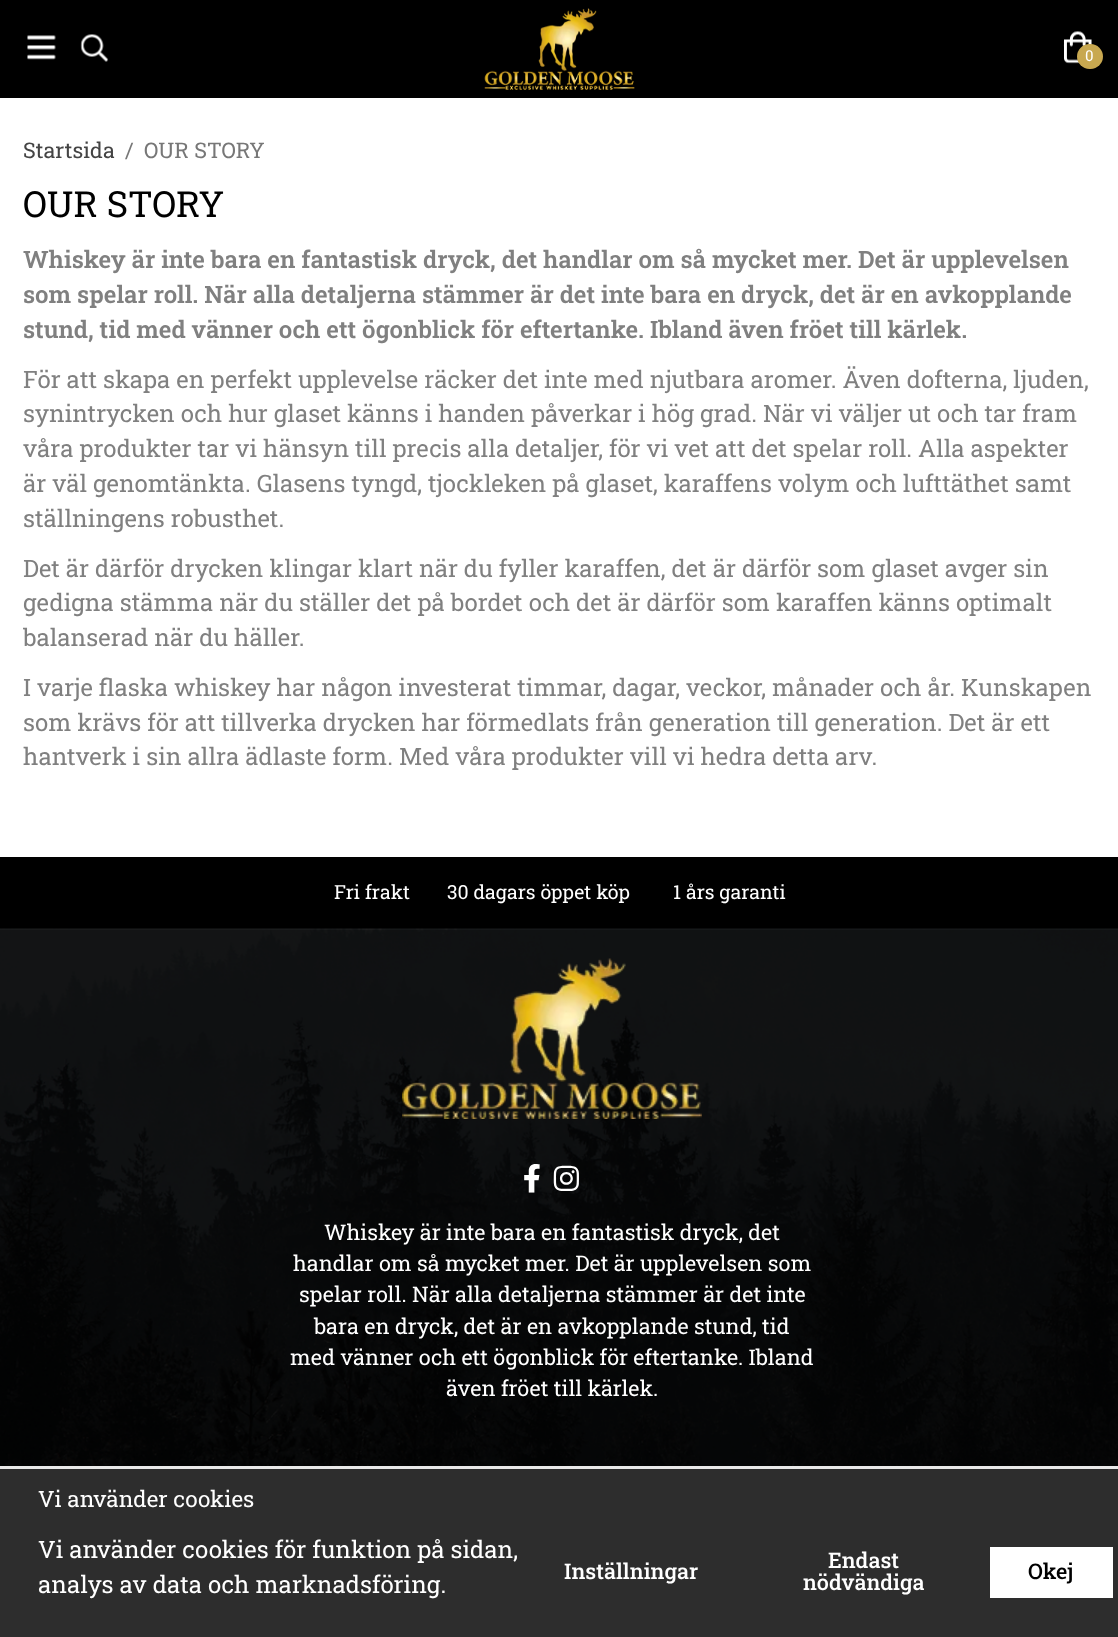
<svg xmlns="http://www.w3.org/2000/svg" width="1118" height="1637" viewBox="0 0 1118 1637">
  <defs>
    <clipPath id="clip1"><rect x="23" y="182" width="1074" height="607"/></clipPath>
  </defs>
  <rect width="100%" height="100%" fill="#ffffff"/>
  <rect x="0" y="0" width="1118" height="98" fill="#000000"/>
  <image x="27" y="35" width="29" height="25" href="img1.png"/>
  <image x="80" y="34" width="29" height="28" href="img2.png"/>
  <image x="484" y="8" width="151" height="82" href="img3.png"/>
  <image x="1063" y="31" width="29" height="33" href="img4.png"/>
  <rect x="1077" y="44" width="26" height="25" rx="12.5" fill="#c8a850"/>
  <text x="1085" y="61" font-family="Roboto Slab" font-size="15" fill="#ffffff">0</text>
  <text x="23" y="158" font-family="Roboto Slab" font-size="21.6" fill="#444444">Startsida</text>
  <text x="125" y="158" font-family="Roboto Slab" font-size="21.6" fill="#777777">/</text>
  <text x="144" y="158" font-family="Roboto Slab" font-size="21.6" fill="#777777">OUR STORY</text>
  <text x="23" y="217" font-family="Roboto Slab" font-size="36" fill="#000000">OUR STORY</text>
  <text x="23" y="268" font-family="Roboto Slab" font-size="24" font-weight="600" fill="#808080">Whiskey är inte bara en fantastisk dryck, det handlar om så mycket mer. Det är upplevelsen</text>
  <text x="23" y="303" font-family="Roboto Slab" font-size="24" font-weight="600" fill="#808080">som spelar roll. När alla detaljerna stämmer är det inte bara en dryck, det är en avkopplande</text>
  <text x="23" y="338" font-family="Roboto Slab" font-size="24" font-weight="600" fill="#808080">stund, tid med vänner och ett ögonblick för eftertanke. Ibland även fröet till kärlek.</text>
  <text x="23" y="388" font-family="Roboto Slab" font-size="24" fill="#808080">För att skapa en perfekt upplevelse räcker det inte med njutbara aromer. Även dofterna, ljuden,</text>
  <text x="23" y="422" font-family="Roboto Slab" font-size="24" fill="#808080">synintrycken och hur glaset känns i handen påverkar i hög grad. När vi väljer ut och tar fram</text>
  <text x="23" y="457" font-family="Roboto Slab" font-size="24" fill="#808080">våra produkter tar vi hänsyn till precis alla detaljer, för vi vet att det spelar roll. Alla aspekter</text>
  <text x="23" y="492" font-family="Roboto Slab" font-size="24" fill="#808080">är väl genomtänkta. Glasens tyngd, tjockleken på glaset, karaffens volym och lufttäthet samt</text>
  <text x="23" y="527" font-family="Roboto Slab" font-size="24" fill="#808080">ställningens robusthet.</text>
  <text x="23" y="577" font-family="Roboto Slab" font-size="24" fill="#808080">Det är därför drycken klingar klart när du fyller karaffen, det är därför som glaset avger sin</text>
  <text x="23" y="611" font-family="Roboto Slab" font-size="24" fill="#808080">gedigna stämma när du ställer det på bordet och det är därför som karaffen känns optimalt</text>
  <g clip-path="url(#clip1)">
    <text x="23" y="646" font-family="Roboto Slab" font-size="24" fill="#808080">balanserad när du häller.</text>
  </g>
  <text x="23" y="696" font-family="Roboto Slab" font-size="24" fill="#808080">I varje flaska whiskey har någon investerat timmar, dagar, veckor, månader och år. Kunskapen</text>
  <text x="23" y="731" font-family="Roboto Slab" font-size="24" fill="#808080">som krävs för att tillverka drycken har förmedlats från generation till generation. Det är ett</text>
  <text x="23" y="765" font-family="Roboto Slab" font-size="24" fill="#808080">hantverk i sin allra ädlaste form. Med våra produkter vill vi hedra detta arv.</text>
  <rect x="0" y="857" width="1118" height="72" fill="#000000"/>
  <text x="334" y="899" font-family="Roboto Slab" font-size="19.5" fill="#ffffff">Fri frakt</text>
  <text x="447" y="899" font-family="Roboto Slab" font-size="19.5" fill="#ffffff">30 dagars öppet köp</text>
  <text x="673" y="899" font-family="Roboto Slab" font-size="19.5" fill="#ffffff">1 års garanti</text>
  <image x="0" y="928" width="1118" height="538" href="img5.png"/>
  <image x="402" y="958" width="300" height="161" href="img6.png"/>
  <image x="524" y="1164" width="16" height="29" href="img7.png"/>
  <image x="553" y="1165" width="26" height="26" href="img8.png"/>
  <text x="324" y="1240" font-family="Roboto Slab" font-size="21.6" fill="#ffffff">Whiskey är inte bara en fantastisk dryck, det</text>
  <text x="293" y="1271" font-family="Roboto Slab" font-size="21.6" fill="#ffffff">handlar om så mycket mer. Det är upplevelsen som</text>
  <text x="299" y="1302" font-family="Roboto Slab" font-size="21.6" fill="#ffffff">spelar roll. När alla detaljerna stämmer är det inte</text>
  <text x="314" y="1334" font-family="Roboto Slab" font-size="21.6" fill="#ffffff">bara en dryck, det är en avkopplande stund, tid</text>
  <text x="290" y="1365" font-family="Roboto Slab" font-size="21.6" fill="#ffffff">med vänner och ett ögonblick för eftertanke. Ibland</text>
  <text x="446" y="1396" font-family="Roboto Slab" font-size="21.6" fill="#ffffff">även fröet till kärlek.</text>
  <rect x="0" y="1469" width="1118" height="168" fill="#2d2d2d"/>
  <rect x="0" y="1466" width="1118" height="3" fill="#e9e9e9"/>
  <text x="38" y="1507" font-family="Roboto Slab" font-size="22.5" fill="#ffffff">Vi använder cookies</text>
  <text x="38" y="1558" font-family="Roboto Slab" font-size="24" fill="#ffffff">Vi använder cookies för funktion på sidan,</text>
  <text x="38" y="1593" font-family="Roboto Slab" font-size="24" fill="#ffffff">analys av data och marknadsföring.</text>
  <text x="564" y="1579" font-family="Roboto Slab" font-size="21.6" font-weight="500" fill="#ffffff">Inställningar</text>
  <text x="828" y="1568" font-family="Roboto Slab" font-size="21.6" font-weight="500" fill="#ffffff">Endast</text>
  <text x="803" y="1590" font-family="Roboto Slab" font-size="21.6" font-weight="500" fill="#ffffff">nödvändiga</text>
  <rect x="990" y="1547" width="123" height="51" fill="#ffffff"/>
  <text x="1028" y="1579" font-family="Roboto Slab" font-size="21.6" font-weight="500" fill="#000000">Okej</text>
</svg>
